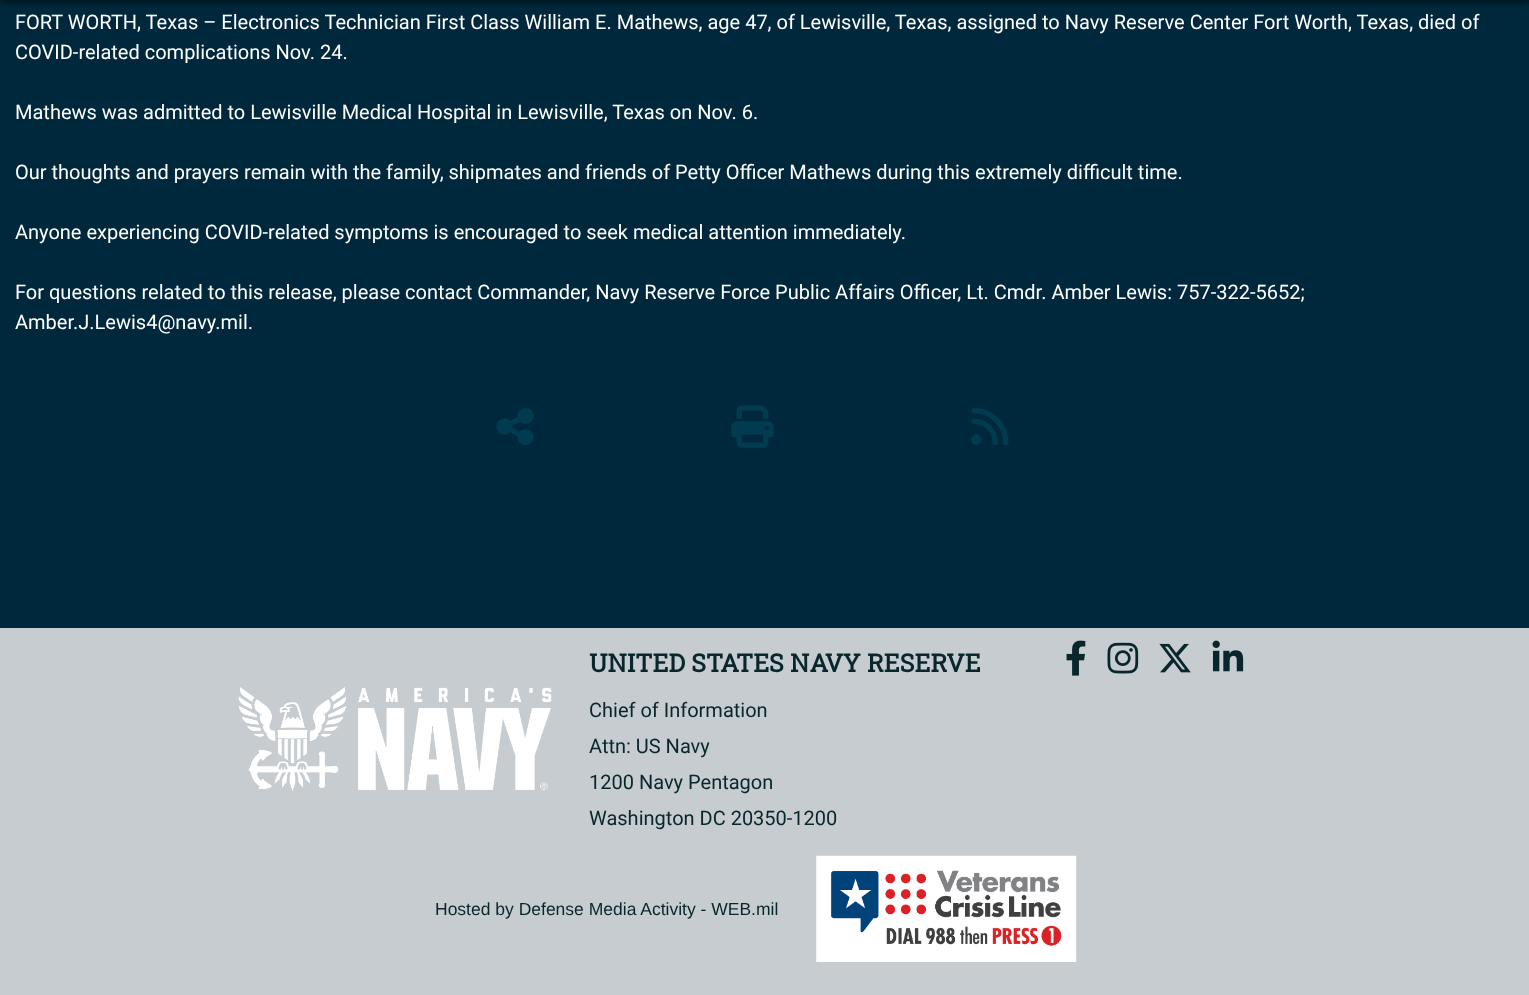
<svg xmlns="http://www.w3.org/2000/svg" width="1529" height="995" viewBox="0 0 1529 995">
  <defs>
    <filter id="blur1" x="-50%" y="-200%" width="200%" height="500%"><feGaussianBlur stdDeviation="3"/></filter>
  </defs>
  <rect width="100%" height="100%" fill="#00283c"/>
  <rect x="0" y="-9" width="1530" height="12" fill="#000406" fill-opacity="0.5" filter="url(#blur1)"/>
  <text x="15" y="29" font-family="Roboto" font-size="20" fill="#ffffff">FORT WORTH, Texas – Electronics Technician First Class William E. Mathews, age 47, of Lewisville, Texas, assigned to Navy Reserve Center Fort Worth, Texas, died of</text>
  <text x="15" y="59" font-family="Roboto" font-size="20" fill="#ffffff">COVID-related complications Nov. 24.</text>
  <text x="15" y="119" font-family="Roboto" font-size="20" fill="#ffffff">Mathews was admitted to Lewisville Medical Hospital in Lewisville, Texas on Nov. 6.</text>
  <text x="15" y="179" font-family="Roboto" font-size="20" fill="#ffffff">Our thoughts and prayers remain with the family, shipmates and friends of Petty Officer Mathews during this extremely difficult time.</text>
  <text x="15" y="239" font-family="Roboto" font-size="20" fill="#ffffff">Anyone experiencing COVID-related symptoms is encouraged to seek medical attention immediately.</text>
  <text x="15" y="299" font-family="Roboto" font-size="20" fill="#ffffff">For questions related to this release, please contact Commander, Navy Reserve Force Public Affairs Officer, Lt. Cmdr. Amber Lewis: 757-322-5652;</text>
  <text x="15" y="329" font-family="Roboto" font-size="20" fill="#ffffff">Amber.J.Lewis4@navy.mil.</text>
  <image x="496" y="408" width="38" height="37" href="img1.png"/>
  <image x="731" y="405" width="43" height="43" href="img2.png"/>
  <image x="971" y="408" width="38" height="37" href="img3.png"/>
  <rect x="0" y="628" width="1529" height="367" fill="#c6ccd0"/>
  <image x="238" y="687" width="314" height="104" href="img4.png"/>
  <text x="589" y="672" font-family="Roboto Slab" font-size="25" font-weight="bold" fill="#08262c">UNITED STATES NAVY RESERVE</text>
  <text x="589" y="717" font-family="Roboto" font-size="20" fill="#08262c">Chief of Information</text>
  <text x="589" y="753" font-family="Roboto" font-size="20" fill="#08262c">Attn: US Navy</text>
  <text x="589" y="789" font-family="Roboto" font-size="20" fill="#08262c">1200 Navy Pentagon</text>
  <text x="589" y="825" font-family="Roboto" font-size="20" fill="#08262c">Washington DC 20350-1200</text>
  <image x="1066" y="640" width="20" height="36" href="img5.png"/>
  <image x="1107" y="642" width="32" height="32" href="img6.png"/>
  <image x="1159" y="643" width="32" height="30" href="img7.png"/>
  <image x="1212" y="640" width="32" height="32" href="img8.png"/>
  <text x="435" y="915" font-family="Liberation Sans" font-size="17.5" fill="#08262c">Hosted by Defense Media Activity - WEB.mil</text>
  <image x="816" y="855" width="261" height="107" href="img9.png"/>
</svg>
